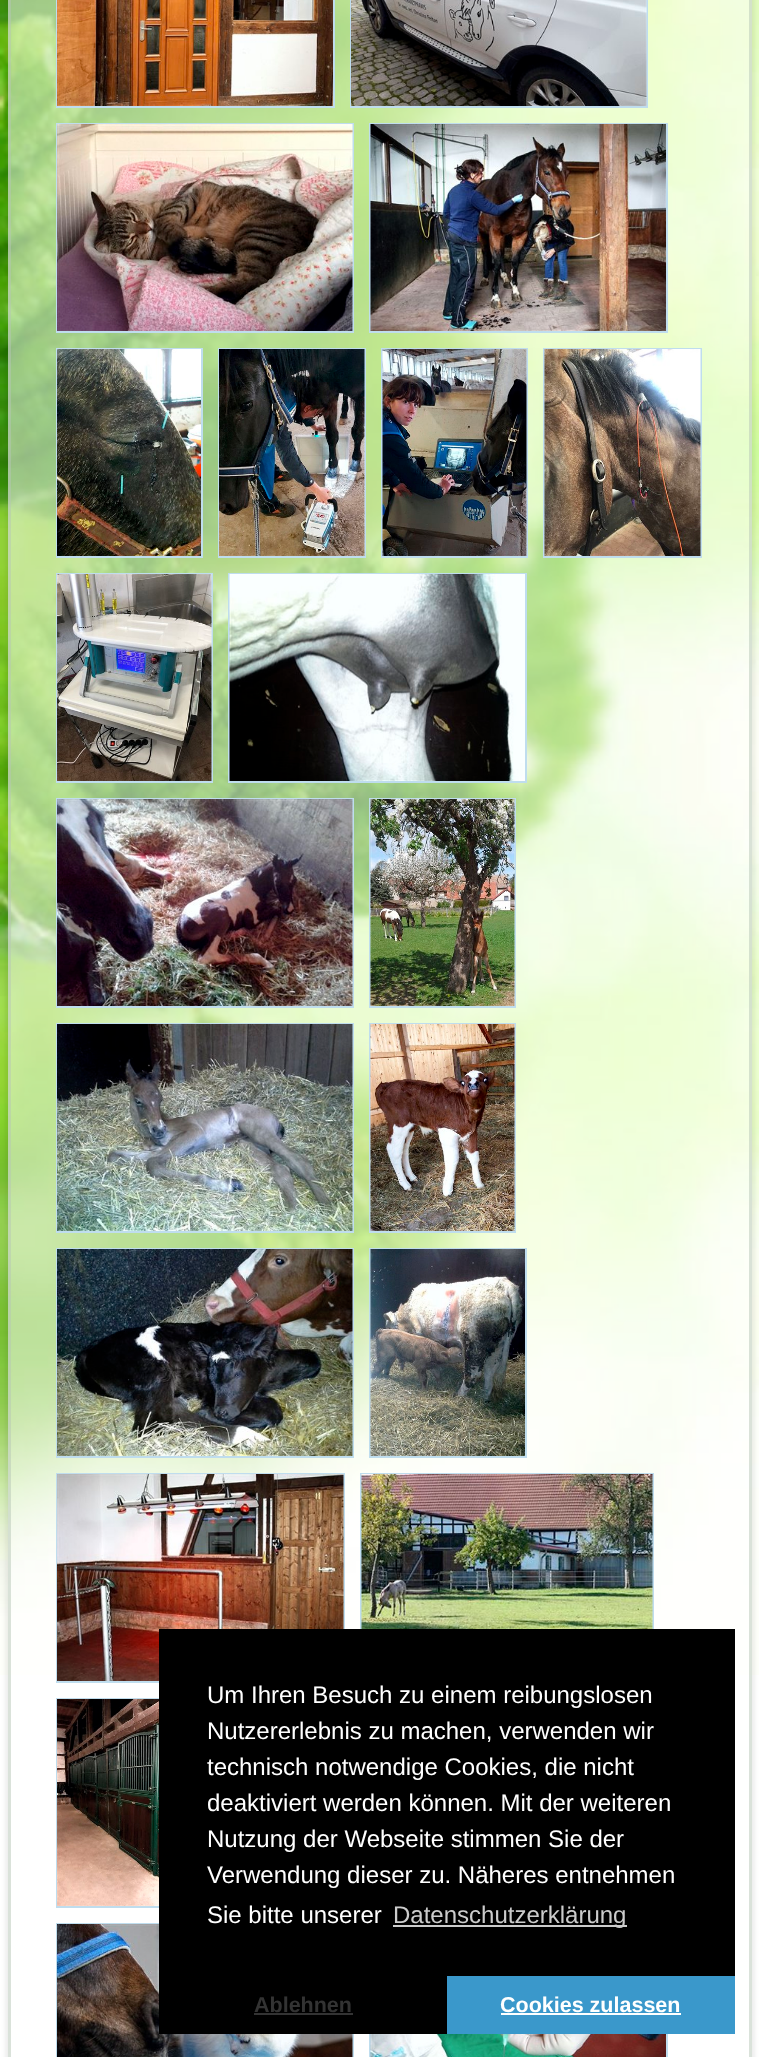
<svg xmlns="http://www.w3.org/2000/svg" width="759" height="2057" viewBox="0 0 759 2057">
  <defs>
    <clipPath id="clip1"><path d="M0 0H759V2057H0ZM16-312H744C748.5-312 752-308.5 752-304V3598C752 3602.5 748.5 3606 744 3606H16C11.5 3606 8 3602.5 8 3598V-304C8-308.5 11.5-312 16-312Z" clip-rule="evenodd"/></clipPath>
    <filter id="blur1" x="-50%" y="-200%" width="200%" height="500%"><feGaussianBlur stdDeviation="2"/></filter>
  </defs>
  <rect width="100%" height="100%" fill="#ffffff"/>
  <image x="0" y="0" width="759" height="1675" href="img1.png"/>
  <g clip-path="url(#clip1)">
    <rect x="5" y="-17" width="750" height="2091" rx="11" fill="#000000" fill-opacity="0.07" filter="url(#blur1)"/>
  </g>
  <rect x="8" y="0" width="744" height="2057" fill="#ffffff" fill-opacity="0.5"/>
  <rect x="9.5" y="-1.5" width="741" height="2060" fill="none" stroke="#b5c5b6" stroke-opacity="0.5" stroke-width="3"/>
  <rect x="57" y="-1" width="277" height="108" fill="none" stroke="#bfddee" stroke-width="2"/>
  <image x="57" y="0" width="276" height="106" href="img2.png"/>
  <rect x="351" y="-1" width="296" height="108" fill="none" stroke="#bfddee" stroke-width="2"/>
  <image x="351" y="0" width="296" height="106" href="img3.png"/>
  <rect x="57" y="124" width="296" height="208" fill="none" stroke="#bfddee" stroke-width="2"/>
  <image x="57" y="124" width="296" height="207" href="img4.png"/>
  <rect x="370" y="124" width="297" height="208" fill="none" stroke="#bfddee" stroke-width="2"/>
  <image x="370" y="124" width="296" height="207" href="img5.png"/>
  <rect x="57" y="349" width="145" height="208" fill="none" stroke="#bfddee" stroke-width="2"/>
  <image x="57" y="349" width="144" height="207" href="img6.png"/>
  <rect x="219" y="349" width="146" height="208" fill="none" stroke="#bfddee" stroke-width="2"/>
  <image x="219" y="349" width="146" height="207" href="img7.png"/>
  <rect x="382" y="349" width="145" height="208" fill="none" stroke="#bfddee" stroke-width="2"/>
  <image x="382" y="349" width="145" height="207" href="img8.png"/>
  <rect x="544" y="349" width="157" height="208" fill="none" stroke="#bfddee" stroke-width="2"/>
  <image x="544" y="349" width="157" height="207" href="img9.png"/>
  <rect x="57" y="574" width="155" height="208" fill="none" stroke="#bfddee" stroke-width="2"/>
  <image x="57" y="574" width="155" height="207" href="img10.png"/>
  <rect x="229" y="574" width="297" height="208" fill="none" stroke="#bfddee" stroke-width="2"/>
  <image x="229" y="574" width="296" height="207" href="img11.png"/>
  <rect x="57" y="799" width="296" height="208" fill="none" stroke="#bfddee" stroke-width="2"/>
  <image x="57" y="799" width="296" height="207" href="img12.png"/>
  <rect x="370" y="799" width="145" height="208" fill="none" stroke="#bfddee" stroke-width="2"/>
  <image x="370" y="799" width="145" height="207" href="img13.png"/>
  <rect x="57" y="1024" width="296" height="208" fill="none" stroke="#bfddee" stroke-width="2"/>
  <image x="57" y="1024" width="296" height="207" href="img14.png"/>
  <rect x="370" y="1024" width="145" height="208" fill="none" stroke="#bfddee" stroke-width="2"/>
  <image x="370" y="1024" width="145" height="207" href="img15.png"/>
  <rect x="57" y="1249" width="296" height="208" fill="none" stroke="#bfddee" stroke-width="2"/>
  <image x="57" y="1249" width="296" height="207" href="img16.png"/>
  <rect x="370" y="1249" width="156" height="208" fill="none" stroke="#bfddee" stroke-width="2"/>
  <image x="370" y="1249" width="155" height="207" href="img17.png"/>
  <rect x="57" y="1474" width="287" height="208" fill="none" stroke="#bfddee" stroke-width="2"/>
  <image x="57" y="1474" width="287" height="207" href="img18.png"/>
  <rect x="361" y="1474" width="292" height="208" fill="none" stroke="#bfddee" stroke-width="2"/>
  <image x="361" y="1474" width="292" height="155" href="img19.png"/>
  <rect x="57" y="1699" width="145" height="208" fill="none" stroke="#bfddee" stroke-width="2"/>
  <image x="57" y="1699" width="102" height="207" href="img20.png"/>
  <rect x="57" y="1924" width="296" height="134" fill="none" stroke="#bfddee" stroke-width="2"/>
  <image x="57" y="1924" width="296" height="133" href="img21.png"/>
  <rect x="370" y="1924" width="297" height="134" fill="none" stroke="#bfddee" stroke-width="2"/>
  <image x="370" y="2034" width="296" height="23" href="img22.png"/>
  <rect x="159" y="1629" width="576" height="405" fill="#000000"/>
  <text x="207" y="1703" font-family="Liberation Sans" font-size="24" fill="#ffffff">Um Ihren Besuch zu einem reibungslosen</text>
  <text x="207" y="1739" font-family="Liberation Sans" font-size="24" fill="#ffffff">Nutzererlebnis zu machen, verwenden wir</text>
  <text x="207" y="1775" font-family="Liberation Sans" font-size="24" fill="#ffffff">technisch notwendige Cookies, die nicht</text>
  <text x="207" y="1811" font-family="Liberation Sans" font-size="24" fill="#ffffff">deaktiviert werden können. Mit der weiteren</text>
  <text x="207" y="1847" font-family="Liberation Sans" font-size="24" fill="#ffffff">Nutzung der Webseite stimmen Sie der</text>
  <text x="207" y="1883" font-family="Liberation Sans" font-size="24" fill="#ffffff">Verwendung dieser zu. Näheres entnehmen</text>
  <text x="207" y="1923" font-family="Liberation Sans" font-size="24" fill="#ffffff">Sie bitte unserer</text>
  <rect x="393" y="1925" width="234" height="2" fill="#cccccc"/>
  <text x="393" y="1923" font-family="Liberation Sans" font-size="24" fill="#cccccc">Datenschutzerklärung</text>
  <text x="254" y="2012" font-family="Liberation Sans" font-size="21.5" font-weight="bold" fill="#333333">Ablehnen</text>
  <rect x="254" y="2013" width="99" height="2" fill="#333333"/>
  <rect x="447" y="1976" width="288" height="58" fill="#3a98cb"/>
  <text x="500" y="2012" font-family="Liberation Sans" font-size="21.5" font-weight="bold" fill="#ffffff">Cookies zulassen</text>
  <rect x="501" y="2013" width="180" height="2" fill="#ffffff"/>
</svg>
